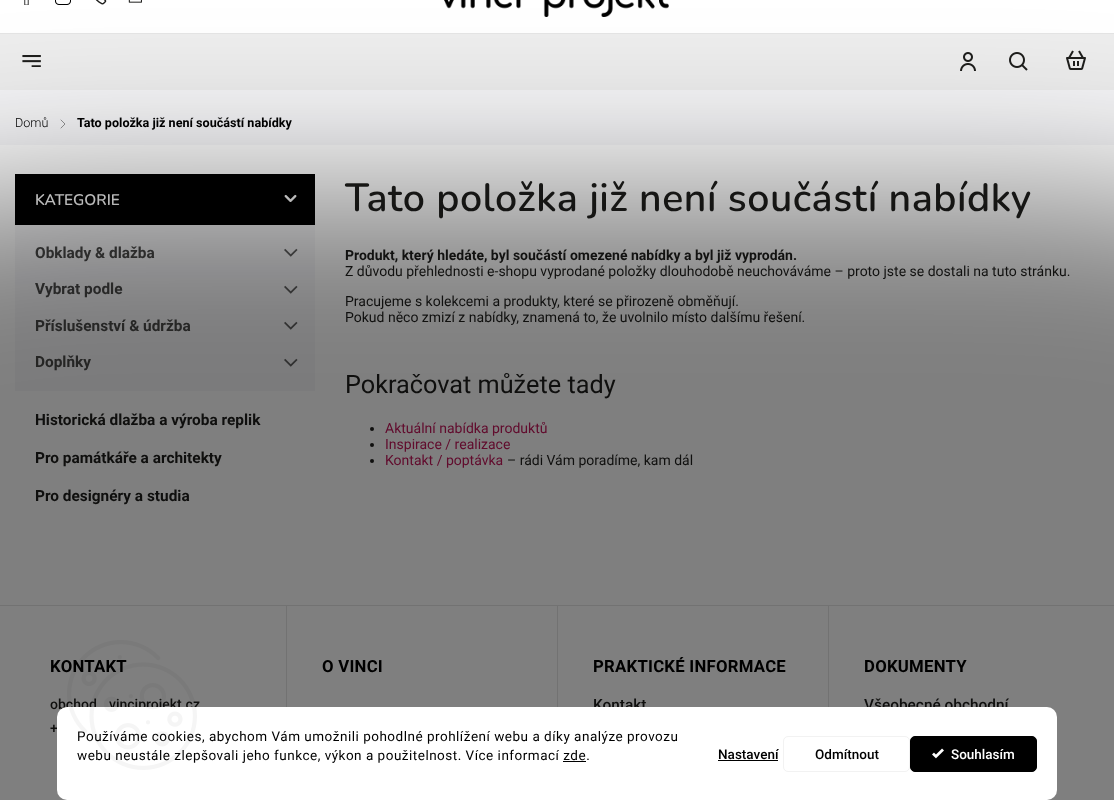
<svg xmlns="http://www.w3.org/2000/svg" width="1114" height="800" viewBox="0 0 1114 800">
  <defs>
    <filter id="blur1" x="-50%" y="-200%" width="200%" height="500%"><feGaussianBlur stdDeviation="80"/></filter>
  </defs>
  <rect width="100%" height="100%" fill="#ffffff"/>
  <rect x="0" y="33" width="1114" height="1" fill="#e5e5e5"/>
  <image x="24" y="0" width="5" height="5" href="img1.png"/>
  <image x="55" y="0" width="16" height="5" href="img2.png"/>
  <image x="95" y="0" width="12" height="5" href="img3.png"/>
  <image x="128" y="0" width="14" height="3" href="img4.png"/>
  <image x="444" y="0" width="225" height="17" href="img5.png"/>
  <rect x="0" y="34" width="1114" height="56" fill="#eeeeee"/>
  <image x="22" y="55" width="19" height="12" href="img6.png"/>
  <image x="960" y="52" width="16" height="19" href="img7.png"/>
  <image x="1009" y="52" width="19" height="19" href="img8.png"/>
  <image x="1066" y="50" width="20" height="20" href="img9.png"/>
  <rect x="0" y="90" width="1114" height="55" fill="#f7f7f9"/>
  <text x="15" y="127" font-family="Roboto" font-size="12.6" font-weight="300" fill="#000000">Domů</text>
  <path d="M61 128L65 124L61 120" fill="none" stroke="#939394" stroke-linecap="round" stroke-linejoin="round"/>
  <text x="77" y="127" font-family="Roboto" font-size="12.6" font-weight="bold" fill="#000000">Tato položka již není součástí nabídky</text>
  <rect x="15" y="225" width="300" height="166" fill="#f7f7f9"/>
  <rect x="15" y="174" width="300" height="51" fill="#000000"/>
  <text x="35" y="205" font-family="Nunito" font-size="15.4" font-weight="600" fill="#ffffff">KATEGORIE</text>
  <image x="284" y="194" width="13" height="8" href="img10.png"/>
  <text x="35" y="258" font-family="Roboto" font-size="15.4" font-weight="bold" fill="#494948">Obklady &amp; dlažba</text>
  <image x="284" y="248" width="14" height="9" href="img11.png"/>
  <text x="35" y="294" font-family="Roboto" font-size="15.4" font-weight="bold" fill="#494948">Vybrat podle</text>
  <image x="284" y="285" width="14" height="9" href="img11.png"/>
  <text x="35" y="331" font-family="Roboto" font-size="15.4" font-weight="bold" fill="#494948">Příslušenství &amp; údržba</text>
  <image x="284" y="321" width="14" height="9" href="img11.png"/>
  <text x="35" y="367" font-family="Roboto" font-size="15.4" font-weight="bold" fill="#494948">Doplňky</text>
  <image x="284" y="358" width="14" height="9" href="img11.png"/>
  <text x="35" y="425" font-family="Roboto" font-size="15.4" font-weight="bold" fill="#1e1e1c">Historická dlažba a výroba replik</text>
  <text x="35" y="463" font-family="Roboto" font-size="15.4" font-weight="bold" fill="#1e1e1c">Pro památkáře a architekty</text>
  <text x="35" y="501" font-family="Roboto" font-size="15.4" font-weight="bold" fill="#1e1e1c">Pro designéry a studia</text>
  <text x="345" y="211" font-family="Nunito" font-size="39.25" font-weight="600" letter-spacing="0.5" fill="#1e1e1c">Tato položka již není součástí nabídky</text>
  <text x="345" y="260" font-family="Roboto" font-size="14" font-weight="bold" fill="#1e1e1c">Produkt, který hledáte, byl součástí omezené nabídky a byl již vyprodán.</text>
  <text x="345" y="276" font-family="Roboto" font-size="14" fill="#1e1e1c">Z důvodu přehlednosti e-shopu vyprodané položky dlouhodobě neuchováváme – proto jste se dostali na tuto stránku.</text>
  <text x="345" y="306" font-family="Roboto" font-size="14" fill="#1e1e1c">Pracujeme s kolekcemi a produkty, které se přirozeně obměňují.</text>
  <text x="345" y="322" font-family="Roboto" font-size="14" fill="#1e1e1c">Pokud něco zmizí z nabídky, znamená to, že uvolnilo místo dalšímu řešení.</text>
  <text x="345" y="393" font-family="Roboto" font-size="25.25" fill="#1e1e1c">Pokračovat můžete tady</text>
  <circle cx="372" cy="429" r="2" fill="#1e1e1c"/>
  <text x="385" y="433" font-family="Roboto" font-size="14" fill="#c2185b">Aktuální nabídka produktů</text>
  <circle cx="372" cy="445" r="2" fill="#1e1e1c"/>
  <text x="385" y="449" font-family="Roboto" font-size="14" fill="#c2185b">Inspirace / realizace</text>
  <circle cx="372" cy="461" r="2" fill="#1e1e1c"/>
  <text x="385" y="465" font-family="Roboto" font-size="14" fill="#c2185b">Kontakt / poptávka</text>
  <text x="507" y="465" font-family="Roboto" font-size="14" fill="#1e1e1c">– rádi Vám poradíme, kam dál</text>
  <rect x="0" y="605" width="1114" height="1" fill="#e5e5e5"/>
  <text x="50" y="672" font-family="Roboto" font-size="16.75" font-weight="bold" letter-spacing="0.25" fill="#000000">KONTAKT</text>
  <text x="50" y="709" font-family="Roboto" font-size="14" font-weight="500" fill="#1e1e1c">obchod</text>
  <text x="109" y="709" font-family="Roboto" font-size="14" font-weight="500" fill="#1e1e1c">vinciprojekt.cz</text>
  <text x="50" y="733" font-family="Roboto" font-size="14" font-weight="500" fill="#1e1e1c">+</text>
  <rect x="286" y="606" width="1" height="101" fill="#e5e5e5"/>
  <text x="322" y="672" font-family="Roboto" font-size="16.75" font-weight="bold" letter-spacing="0.25" fill="#000000">O VINCI</text>
  <rect x="557" y="606" width="1" height="101" fill="#e5e5e5"/>
  <text x="593" y="672" font-family="Roboto" font-size="16.75" font-weight="bold" letter-spacing="0.25" fill="#000000">PRAKTICKÉ INFORMACE</text>
  <text x="593" y="710" font-family="Roboto" font-size="15.4" font-weight="500" fill="#1e1e1c">Kontakt</text>
  <rect x="828" y="606" width="1" height="101" fill="#e5e5e5"/>
  <text x="864" y="672" font-family="Roboto" font-size="16.75" font-weight="bold" letter-spacing="0.25" fill="#000000">DOKUMENTY</text>
  <text x="864" y="710" font-family="Roboto" font-size="15.4" font-weight="500" fill="#1e1e1c">Všeobecné obchodní</text>
  <rect x="-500" y="190" width="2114" height="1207" rx="567" fill="#000000" fill-opacity="0.5" filter="url(#blur1)"/>
  <rect x="57" y="707" width="1000" height="93" rx="10" fill="#ffffff"/>
  <image x="67" y="640" width="130" height="130" href="img12.png"/>
  <text x="77" y="741" font-family="Roboto" font-size="13.5" letter-spacing="0.5" fill="#000000">Používáme cookies, abychom Vám umožnili pohodlné prohlížení webu a díky analýze provozu</text>
  <text x="77" y="760" font-family="Roboto" font-size="13.5" letter-spacing="0.5" fill="#000000">webu neustále zlepšovali jeho funkce, výkon a použitelnost. Více informací zde.</text>
  <rect x="563" y="761" width="23" height="1" fill="#000000"/>
  <text x="718" y="759" font-family="Roboto" font-size="13.5" font-weight="500" fill="#000000">Nastavení</text>
  <rect x="718" y="760" width="60" height="1" fill="#000000"/>
  <rect x="783.5" y="736.5" width="126" height="35" rx="4.5" fill="none" stroke="#f2f2f2"/>
  <text x="815" y="759" font-family="Roboto" font-size="13.5" font-weight="500" fill="#000000">Odmítnout</text>
  <rect x="910.5" y="736.5" width="126" height="35" rx="4.5" fill="#000000" stroke="#000000"/>
  <image x="932" y="748" width="12" height="11" href="img13.png"/>
  <text x="951" y="759" font-family="Roboto" font-size="13.5" font-weight="500" fill="#ffffff">Souhlasím</text>
</svg>
